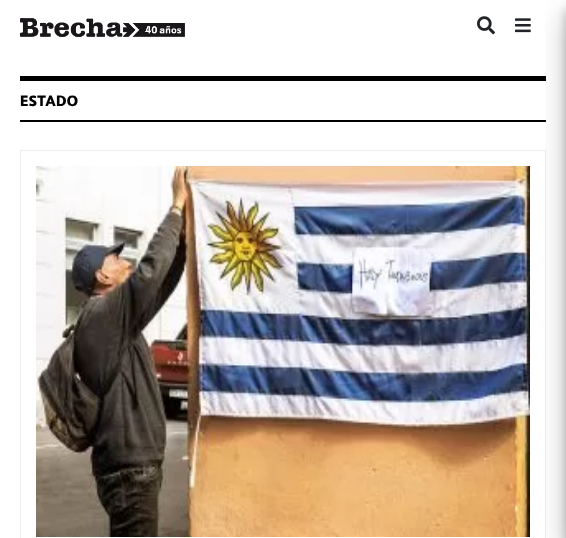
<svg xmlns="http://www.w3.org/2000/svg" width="566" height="538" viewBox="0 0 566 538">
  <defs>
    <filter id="blur1" x="-50%" y="-200%" width="200%" height="500%"><feGaussianBlur stdDeviation="5"/></filter>
    <filter id="blur2" x="-50%" y="-200%" width="200%" height="500%"><feGaussianBlur stdDeviation="14"/></filter>
  </defs>
  <rect width="100%" height="100%" fill="#ffffff"/>
  <image x="20" y="17" width="165" height="20" href="img1.png"/>
  <image x="477" y="16" width="18" height="19" href="img2.png"/>
  <image x="515" y="18" width="16" height="15" href="img3.png"/>
  <rect x="566" y="10" width="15" height="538" fill="#000000" fill-opacity="0.22" filter="url(#blur1)"/>
  <rect x="20" y="76" width="526" height="5" fill="#000000"/>
  <rect x="20" y="120" width="526" height="2" fill="#000000"/>
  <rect x="20.5" y="150.5" width="525" height="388" fill="none" stroke="#eeeeee"/>
  <image x="36" y="166" width="494" height="371" href="img4.png"/>
  <rect x="566" y="14" width="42" height="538" fill="#000000" fill-opacity="0.25" filter="url(#blur2)"/>
  <text x="20" y="106" font-family="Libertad" font-size="16" font-weight="800" letter-spacing="0.25" fill="#000000">ESTADO</text>
</svg>
